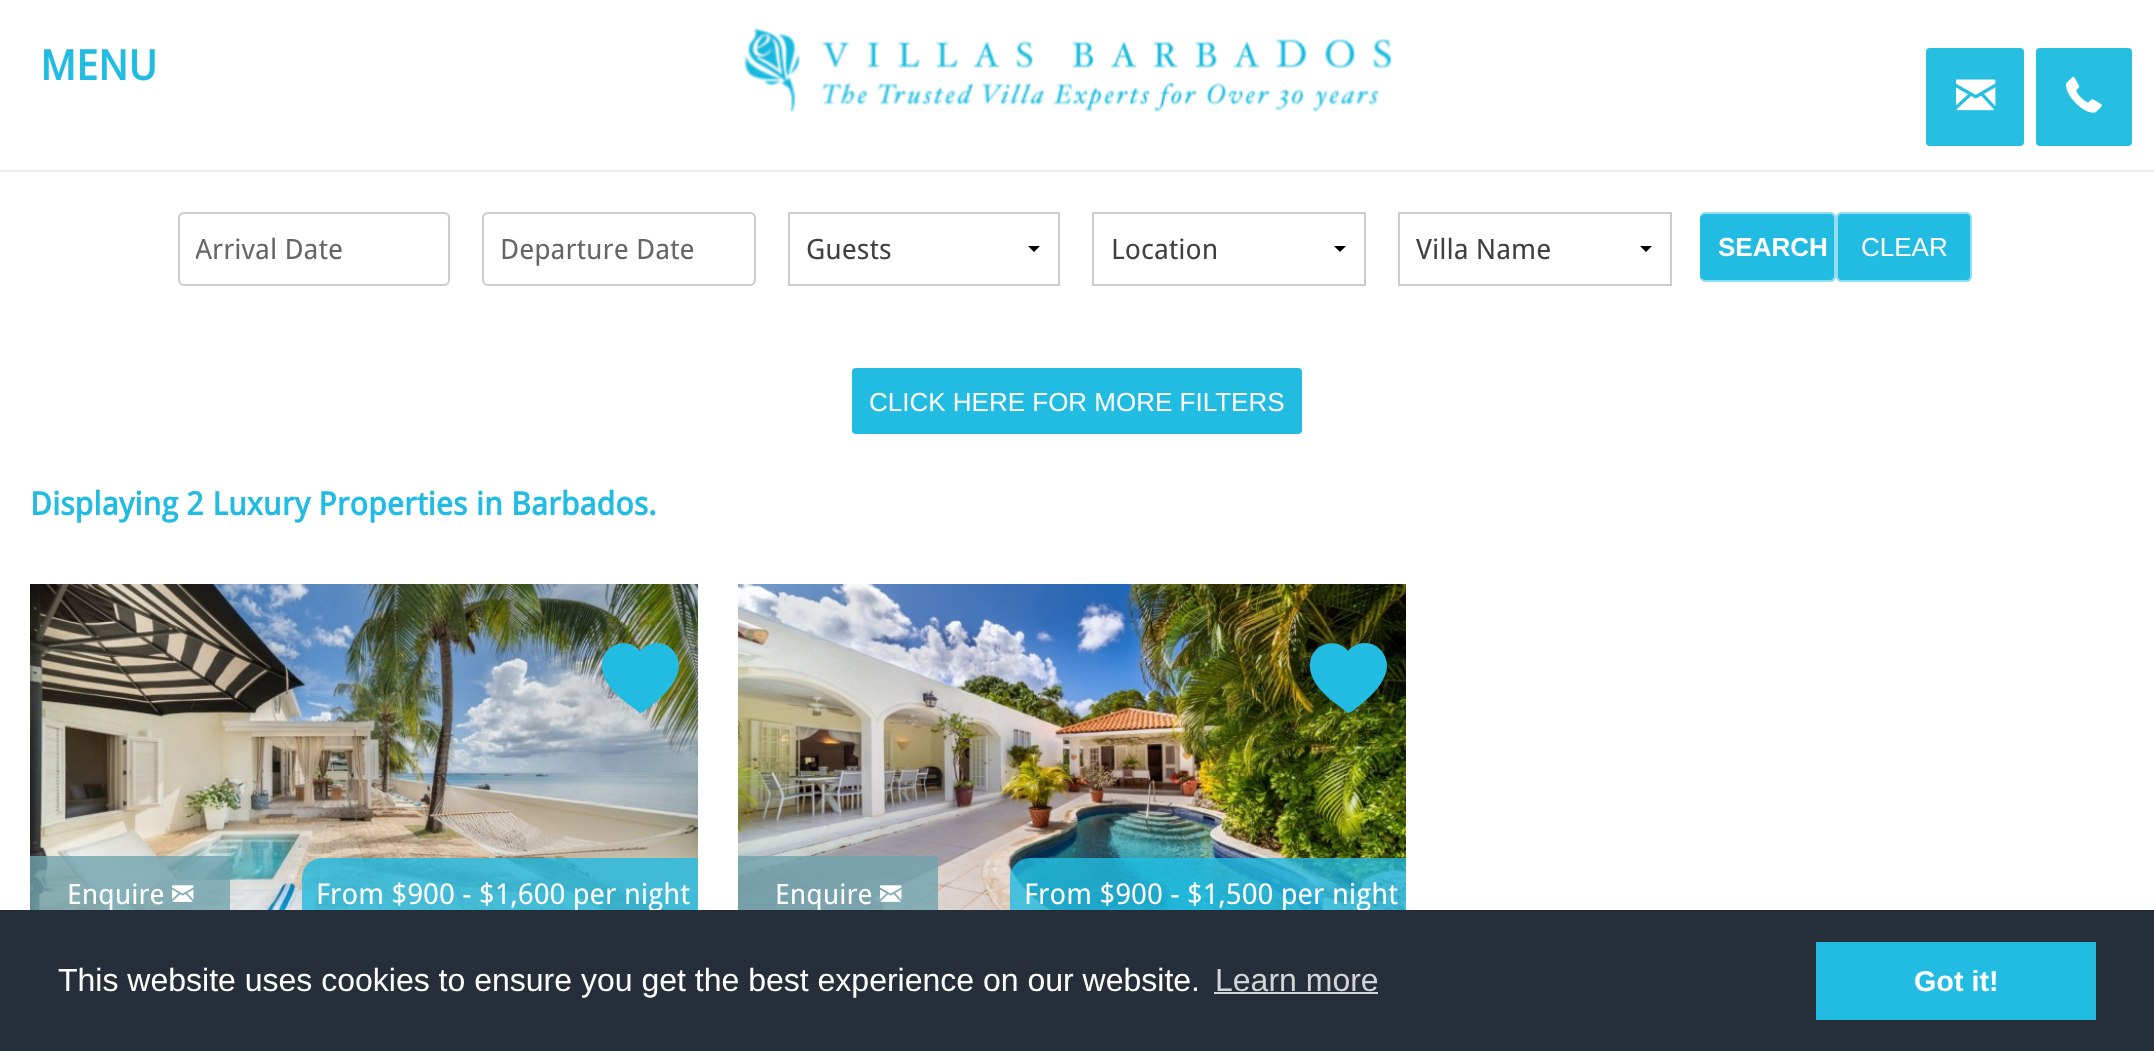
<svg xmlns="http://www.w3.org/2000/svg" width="2154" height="1051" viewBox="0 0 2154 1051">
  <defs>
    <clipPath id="clip1"><rect x="196" y="234" width="236" height="32"/></clipPath>
  </defs>
  <rect width="100%" height="100%" fill="#ffffff"/>
  <rect x="0" y="170" width="2154" height="2" fill="#eeeeee"/>
  <text x="40" y="80" font-family="Droid Sans" font-size="41.5" font-weight="bold" fill="#22bce2">MENU</text>
  <image x="744" y="28" width="648" height="84" href="img1.png"/>
  <rect x="1925" y="47" width="100" height="100" rx="5" fill="#26bfe1" stroke="#ffffff" stroke-width="2"/>
  <image x="1956" y="79" width="40" height="32" href="img2.png"/>
  <rect x="2035" y="47" width="98" height="100" rx="5" fill="#26bfe1" stroke="#ffffff" stroke-width="2"/>
  <image x="2066" y="76" width="36" height="37" href="img3.png"/>
  <rect x="179" y="213" width="270" height="72" rx="5" fill="none" stroke="#cccccc" stroke-width="2"/>
  <g clip-path="url(#clip1)">
    <text x="195" y="259" font-family="Droid Sans" font-size="28" fill="#666666">Arrival Date</text>
  </g>
  <rect x="483" y="213" width="272" height="72" rx="5" fill="none" stroke="#cccccc" stroke-width="2"/>
  <text x="500" y="259" font-family="Droid Sans" font-size="28" fill="#666666">Departure Date</text>
  <path d="M1040 246L1034 252L1028 246Z" fill="#000000"/>
  <rect x="789" y="213" width="270" height="72" fill="none" stroke="#cccccc" stroke-width="2"/>
  <text x="806" y="259" font-family="Droid Sans" font-size="28" fill="#404040">Guests</text>
  <path d="M1346 246L1340 252L1334 246Z" fill="#000000"/>
  <rect x="1093" y="213" width="272" height="72" fill="none" stroke="#cccccc" stroke-width="2"/>
  <text x="1111" y="259" font-family="Droid Sans" font-size="28" fill="#404040">Location</text>
  <path d="M1652 246L1646 252L1640 246Z" fill="#000000"/>
  <rect x="1399" y="213" width="272" height="72" fill="none" stroke="#cccccc" stroke-width="2"/>
  <text x="1416" y="259" font-family="Droid Sans" font-size="28" fill="#404040">Villa Name</text>
  <rect x="1700" y="212" width="136" height="70" rx="6" fill="#22bce2"/>
  <path d="M1706 212H1830C1833 212 1836 215 1836 218V276C1836 279 1833 282 1830 282H1706C1703 282 1700 279 1700 276V218C1700 215 1703 212 1706 212ZM1706 214H1830C1832 214 1834 216 1834 218V276C1834 278 1832 280 1830 280H1706C1703 280 1700 278 1700 276V218C1700 216 1703 214 1706 214Z" fill="#ffffff" fill-opacity="0.5" fill-rule="evenodd"/>
  <text x="1718" y="256" font-family="Liberation Sans" font-size="26" font-weight="bold" fill="#ffffff">SEARCH</text>
  <rect x="1836" y="212" width="136" height="70" rx="6" fill="#22bce2"/>
  <rect x="1837" y="213" width="134" height="68" rx="5" fill="none" stroke="#ffffff" stroke-opacity="0.5" stroke-width="2"/>
  <text x="1861" y="256" font-family="Liberation Sans" font-size="26" fill="#ffffff">CLEAR</text>
  <rect x="851" y="367" width="452" height="68" rx="5" fill="#22bce2" stroke="#ffffff" stroke-width="2"/>
  <text x="869" y="411" font-family="Liberation Sans" font-size="26" fill="#ffffff">CLICK HERE FOR MORE FILTERS</text>
  <text x="30" y="515" font-family="Droid Sans" font-size="32" font-weight="bold" fill="#22bce2">Displaying 2 Luxury Properties in Barbados.</text>
  <image x="30" y="584" width="668" height="326" href="img4.png"/>
  <path d="M657 643C665 643 671 647 675 653C678 657 679 662 679 667C677 684 663 696 651 706L647 709C645 710 643 713 640 713L623 700C611 690 598 675 603 658C608 642 630 638 640 651C644 646 650 643 657 643Z" fill="#22bce2"/>
  <rect x="30" y="856" width="200" height="54" fill="#70a2ae" fill-opacity="0.8"/>
  <text x="67" y="904" font-family="Droid Sans" font-size="28" fill="#ffffff">Enquire</text>
  <image x="172" y="885" width="22" height="17" href="img5.png"/>
  <path d="M322 858H698V932H302V878C302 867 311 858 322 858Z" fill="#22bce2" fill-opacity="0.8"/>
  <text x="316" y="904" font-family="Droid Sans" font-size="28.75" fill="#ffffff">From $900 - $1,600 per night</text>
  <image x="738" y="584" width="668" height="326" href="img6.png"/>
  <path d="M1365 643C1373 643 1379 647 1383 653C1386 657 1387 662 1387 667C1385 684 1371 696 1359 706L1355 709C1353 710 1351 713 1348 713L1331 700C1319 690 1306 675 1311 658C1316 642 1338 638 1348 651C1352 646 1358 643 1365 643Z" fill="#22bce2"/>
  <rect x="738" y="856" width="200" height="54" fill="#70a2ae" fill-opacity="0.8"/>
  <text x="775" y="904" font-family="Droid Sans" font-size="28" fill="#ffffff">Enquire</text>
  <image x="880" y="885" width="22" height="17" href="img7.png"/>
  <path d="M1030 858H1406V932H1010V878C1010 867 1019 858 1030 858Z" fill="#22bce2" fill-opacity="0.8"/>
  <text x="1024" y="904" font-family="Droid Sans" font-size="28.75" fill="#ffffff">From $900 - $1,500 per night</text>
  <rect x="0" y="910" width="2154" height="141" fill="#252e39"/>
  <text x="58" y="991" font-family="Liberation Sans" font-size="32" fill="#ffffff">This website uses cookies to ensure you get the best experience on our website.</text>
  <text x="1215" y="991" font-family="Liberation Sans" font-size="32" fill="#d3d5d7">Learn more</text>
  <rect x="1214" y="992" width="164" height="2" fill="#d3d5d7"/>
  <rect x="1816" y="942" width="280" height="78" fill="#22bce2"/>
  <text x="1914" y="991" font-family="Liberation Sans" font-size="28.75" font-weight="bold" fill="#ffffff">Got it!</text>
</svg>
